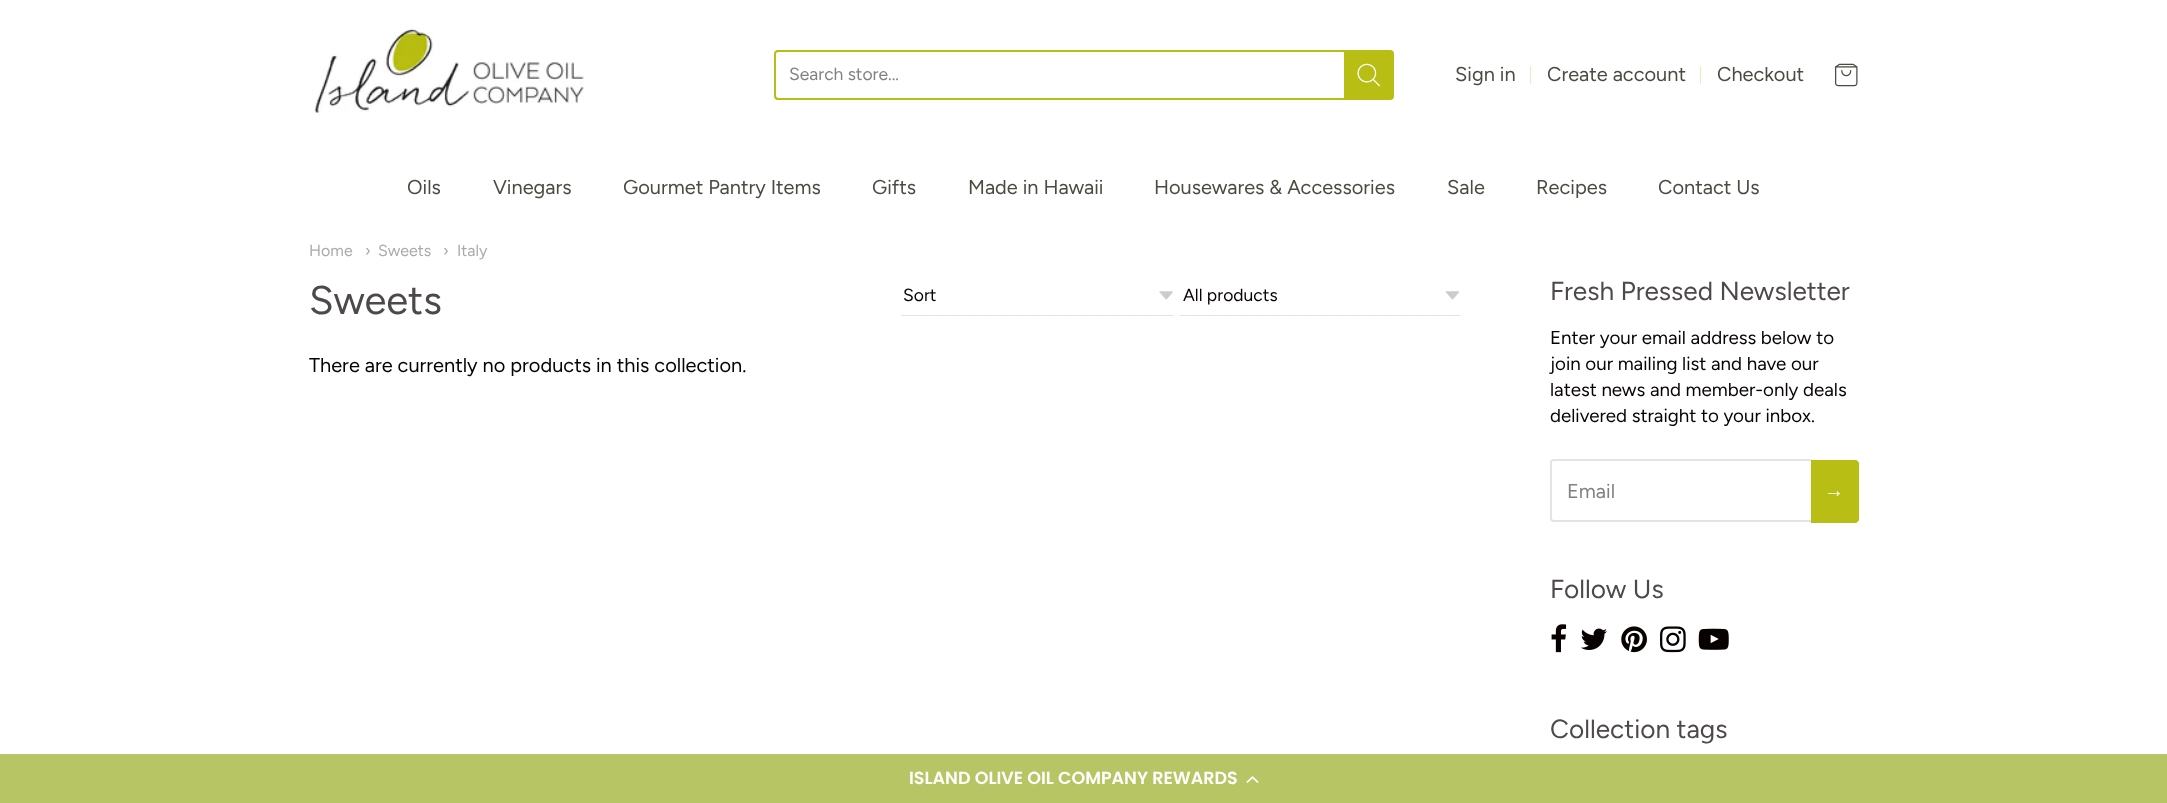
<svg xmlns="http://www.w3.org/2000/svg" width="2167" height="803" viewBox="0 0 2167 803">
  <rect width="100%" height="100%" fill="#ffffff"/>
  <image x="314" y="28" width="270" height="85" href="img1.png"/>
  <path d="M778 50H1344V100H778C775 100 774 98 774 96V54C774 52 775 50 778 50ZM778 52H1344V98H778C777 97 776 97 776 96V53Z" fill="#b8be14" fill-rule="evenodd"/>
  <text x="789" y="80" font-family="Figtree" font-size="17.5" fill="#838080">Search store...</text>
  <path d="M1345.5 51.5H1390C1391.5 51.5 1392.5 52.5 1392.5 54V96C1392.5 97.5 1391.5 98.5 1390 98.5H1345.5Z" fill="#b8be14" stroke="#b8be14" stroke-width="3"/>
  <image x="1357" y="63" width="23" height="24" href="img2.png"/>
  <text x="1455" y="81" font-family="Figtree" font-size="20" fill="#494d41">Sign in</text>
  <rect x="1530" y="66" width="1" height="18" fill="#eaecb9"/>
  <text x="1547" y="81" font-family="Figtree" font-size="20" fill="#494d41">Create account</text>
  <rect x="1700" y="66" width="1" height="18" fill="#eaecb9"/>
  <text x="1717" y="81" font-family="Figtree" font-size="20" fill="#494d41">Checkout</text>
  <image x="1835" y="63" width="23" height="24" href="img3.png"/>
  <text x="407" y="194" font-family="Figtree" font-size="20" fill="#494d41">Oils</text>
  <text x="493" y="194" font-family="Figtree" font-size="20" fill="#494d41">Vinegars</text>
  <text x="623" y="194" font-family="Figtree" font-size="20" fill="#494d41">Gourmet Pantry Items</text>
  <text x="872" y="194" font-family="Figtree" font-size="20" fill="#494d41">Gifts</text>
  <text x="968" y="194" font-family="Figtree" font-size="20" fill="#494d41">Made in Hawaii</text>
  <text x="1154" y="194" font-family="Figtree" font-size="20" fill="#494d41">Housewares &amp; Accessories</text>
  <text x="1447" y="194" font-family="Figtree" font-size="20" fill="#494d41">Sale</text>
  <text x="1536" y="194" font-family="Figtree" font-size="20" fill="#494d41">Recipes</text>
  <text x="1658" y="194" font-family="Figtree" font-size="20" fill="#494d41">Contact Us</text>
  <text x="309" y="256" font-family="Figtree" font-size="16" fill="#a9aaaa">Home</text>
  <text x="365" y="256" font-family="Figtree" font-size="16" fill="#a9aaaa">›</text>
  <text x="378" y="256" font-family="Figtree" font-size="16" fill="#a9aaaa">Sweets</text>
  <text x="443" y="256" font-family="Figtree" font-size="16" fill="#a9aaaa">›</text>
  <text x="457" y="256" font-family="Figtree" font-size="16" fill="#a9aaaa">Italy</text>
  <text x="309" y="314" font-family="Figtree" font-size="40" fill="#4e4949">Sweets</text>
  <image x="1159" y="291" width="14" height="9" href="img4.png"/>
  <rect x="901" y="315" width="273" height="1" fill="#e1e3e4"/>
  <text x="903" y="301" font-family="Figtree" font-size="17.5" fill="#070100">Sort</text>
  <image x="1445" y="291" width="14" height="9" href="img5.png"/>
  <rect x="1180" y="315" width="280" height="1" fill="#e1e3e4"/>
  <text x="1183" y="301" font-family="Figtree" font-size="17.5" fill="#070100">All products</text>
  <text x="309" y="372" font-family="Figtree" font-size="20" fill="#070100">There are currently no products in this collection.</text>
  <text x="1550" y="300" font-family="Figtree" font-size="26.25" fill="#4e4949">Fresh Pressed Newsletter</text>
  <text x="1550" y="344" font-family="Figtree" font-size="18.75" fill="#070100">Enter your email address below to</text>
  <text x="1550" y="370" font-family="Figtree" font-size="18.75" fill="#070100">join our mailing list and have our</text>
  <text x="1550" y="396" font-family="Figtree" font-size="18.75" fill="#070100">latest news and member-only deals</text>
  <text x="1550" y="422" font-family="Figtree" font-size="18.75" fill="#070100">delivered straight to your inbox.</text>
  <path d="M1554 459H1811V522H1554C1552 522 1550 521 1550 519V462C1550 460 1552 459 1554 459ZM1554 461H1811V520H1554C1553 520 1552 519 1552 519V462C1552 462 1553 461 1554 461Z" fill="#e1e3e4" fill-rule="evenodd"/>
  <text x="1567" y="498" font-family="Figtree" font-size="20" fill="#838080">Email</text>
  <path d="M1811 460H1855C1857 460 1859 462 1859 464V519C1859 521 1857 523 1855 523H1811Z" fill="#b8be14"/>
  <path d="M1811 460H1855C1857 460 1859 462 1859 464V519C1859 521 1857 522 1855 522H1811ZM1811 462H1855C1856 462 1856 463 1856 464V519C1856 519 1856 520 1855 520H1811Z" fill="#b8be14" fill-rule="evenodd"/>
  <text x="1824" y="497" font-family="Liberation Sans" font-size="20" fill="#ffffff">→</text>
  <text x="1550" y="598" font-family="Figtree" font-size="26.25" fill="#4e4949">Follow Us</text>
  <image x="1551" y="624" width="16" height="29" href="img6.png"/>
  <image x="1581" y="628" width="26" height="22" href="img7.png"/>
  <image x="1621" y="626" width="26" height="27" href="img8.png"/>
  <image x="1660" y="626" width="26" height="27" href="img9.png"/>
  <image x="1698" y="628" width="31" height="22" href="img10.png"/>
  <text x="1550" y="738" font-family="Figtree" font-size="26.25" fill="#4e4949">Collection tags</text>
  <rect x="0" y="754" width="2167" height="49" fill="#b7c565"/>
  <text x="909" y="784" font-family="Poppins" font-size="17.5" font-weight="600" fill="#ffffff">ISLAND OLIVE OIL COMPANY REWARDS</text>
  <image x="1246" y="776" width="13" height="7" href="img11.png"/>
</svg>
